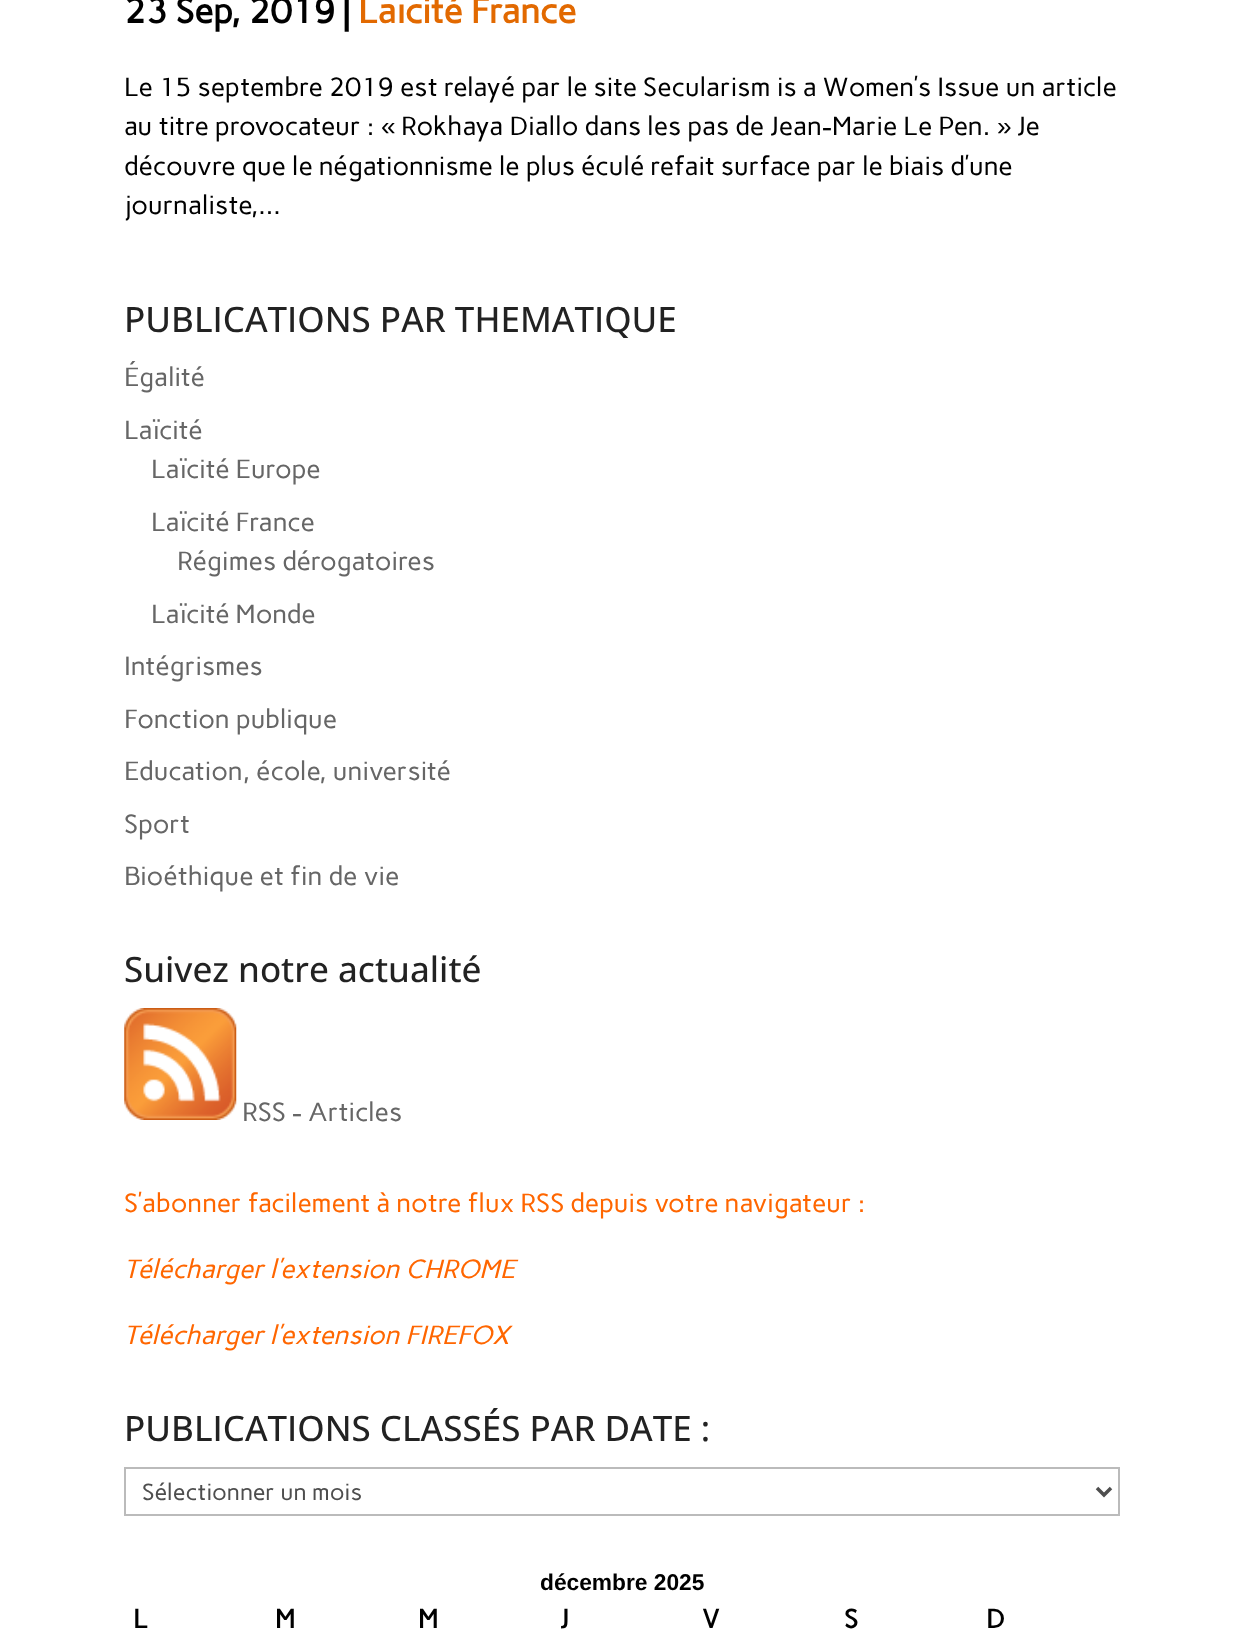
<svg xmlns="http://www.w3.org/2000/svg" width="1243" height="1636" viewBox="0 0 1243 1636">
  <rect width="100%" height="100%" fill="#ffffff"/>
  <text x="124" y="23" font-family="Carme" font-size="35" font-weight="bold" fill="#000000">23 Sep, 2019 |</text>
  <text x="358" y="23" font-family="Carme" font-size="35" font-weight="bold" fill="#e26900">Laïcité France</text>
  <text x="124" y="96" font-family="Carme" font-size="26.25" fill="#000000">Le 15 septembre 2019 est relayé par le site Secularism is a Women’s Issue un article</text>
  <text x="124" y="135" font-family="Carme" font-size="26.25" fill="#000000">au titre provocateur :</text>
  <text x="381" y="135" font-family="Liberation Sans" font-size="26.25" fill="#000000">«</text>
  <text x="401" y="135" font-family="Carme" font-size="26.25" fill="#000000">Rokhaya Diallo dans les pas de Jean-Marie Le Pen.</text>
  <text x="997" y="135" font-family="Liberation Sans" font-size="26.25" fill="#000000">»</text>
  <text x="1017" y="135" font-family="Carme" font-size="26.25" fill="#000000">Je</text>
  <text x="124" y="175" font-family="Carme" font-size="26.25" fill="#000000">découvre que le négationnisme le plus éculé refait surface par le biais d’une</text>
  <text x="124" y="214" font-family="Carme" font-size="26.25" fill="#000000">journaliste,...</text>
  <text x="124" y="332" font-family="Open Sans" font-size="35" font-weight="500" fill="#222222">PUBLICATIONS PAR THEMATIQUE</text>
  <text x="124" y="386" font-family="Carme" font-size="26.25" fill="#666666">Égalité</text>
  <text x="124" y="439" font-family="Carme" font-size="26.25" fill="#666666">Laïcité</text>
  <text x="151" y="478" font-family="Carme" font-size="26.25" fill="#666666">Laïcité Europe</text>
  <text x="151" y="531" font-family="Carme" font-size="26.25" fill="#666666">Laïcité France</text>
  <text x="177" y="570" font-family="Carme" font-size="26.25" fill="#666666">Régimes dérogatoires</text>
  <text x="151" y="623" font-family="Carme" font-size="26.25" fill="#666666">Laïcité Monde</text>
  <text x="124" y="675" font-family="Carme" font-size="26.25" fill="#666666">Intégrismes</text>
  <text x="124" y="728" font-family="Carme" font-size="26.25" fill="#666666">Fonction publique</text>
  <text x="124" y="780" font-family="Carme" font-size="26.25" fill="#666666">Education, école, université</text>
  <text x="124" y="833" font-family="Carme" font-size="26.25" fill="#666666">Sport</text>
  <text x="124" y="885" font-family="Carme" font-size="26.25" fill="#666666">Bioéthique et fin de vie</text>
  <text x="124" y="982" font-family="Open Sans" font-size="35" font-weight="500" fill="#222222">Suivez notre actualité</text>
  <image x="124" y="1008" width="113" height="112" href="img1.png"/>
  <text x="242" y="1121" font-family="Carme" font-size="26.25" fill="#666666">RSS - Articles</text>
  <text x="124" y="1212" font-family="Carme" font-size="26.25" fill="#ff6600">S’abonner facilement à notre flux RSS depuis votre navigateur :</text>
  <text x="124" y="1278" font-family="Carme" font-size="26.25" font-style="italic" fill="#ff6600">Télécharger l’extension CHROME</text>
  <text x="124" y="1344" font-family="Carme" font-size="26.25" font-style="italic" fill="#ff6600">Télécharger l’extension FIREFOX</text>
  <text x="124" y="1441" font-family="Open Sans" font-size="35" font-weight="500" fill="#222222">PUBLICATIONS CLASSÉS PAR DATE :</text>
  <rect x="125" y="1468" width="994" height="47" fill="none" stroke="#bbbbbb" stroke-width="2"/>
  <path d="M1097 1488L1104 1495L1111 1488" fill="none" stroke="#4e4e4e" stroke-width="3.5"/>
  <text x="142" y="1500" font-family="Carme" font-size="23.25" fill="#4e4e4e">Sélectionner un mois</text>
  <text x="540" y="1590" font-family="Liberation Sans" font-size="22.75" font-weight="bold" fill="#000000">décembre 2025</text>
  <text x="133" y="1628" font-family="Carme" font-size="26.25" font-weight="bold" fill="#000000">L</text>
  <text x="275" y="1628" font-family="Carme" font-size="26.25" font-weight="bold" fill="#000000">M</text>
  <text x="418" y="1628" font-family="Carme" font-size="26.25" font-weight="bold" fill="#000000">M</text>
  <text x="560" y="1628" font-family="Carme" font-size="26.25" font-weight="bold" fill="#000000">J</text>
  <text x="702" y="1628" font-family="Carme" font-size="26.25" font-weight="bold" fill="#000000">V</text>
  <text x="844" y="1628" font-family="Carme" font-size="26.25" font-weight="bold" fill="#000000">S</text>
  <text x="986" y="1628" font-family="Carme" font-size="26.25" font-weight="bold" fill="#000000">D</text>
</svg>
